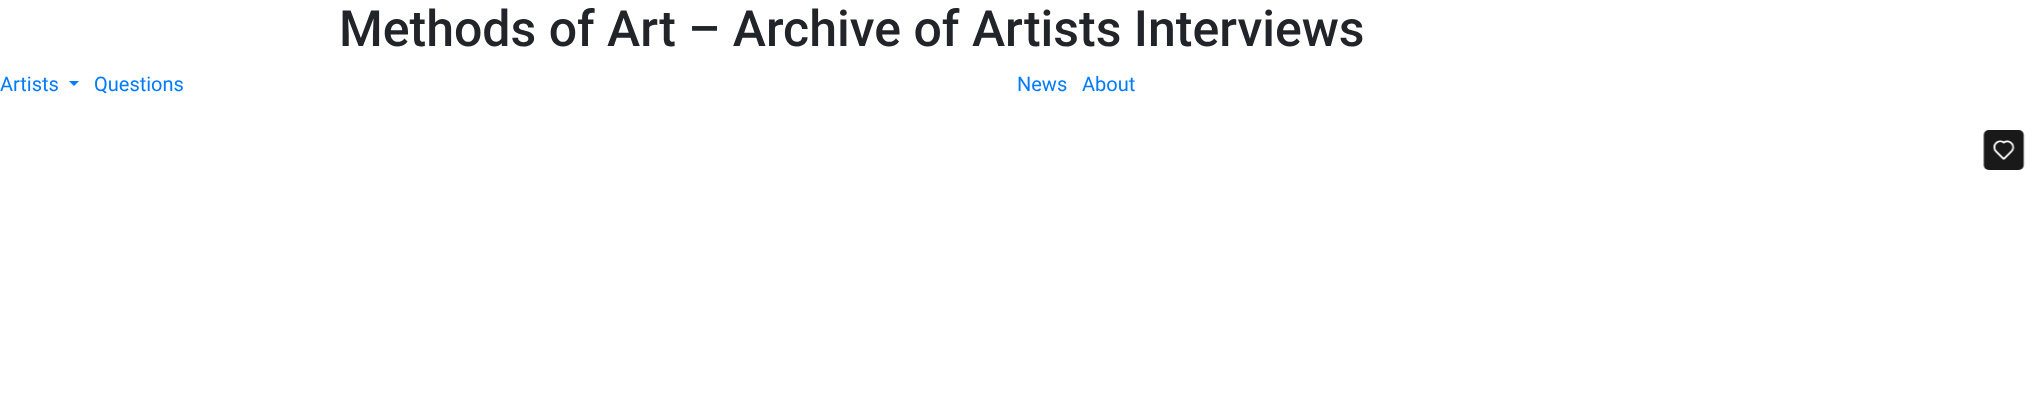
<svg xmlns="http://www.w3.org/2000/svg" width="2033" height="398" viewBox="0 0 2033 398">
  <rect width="100%" height="100%" fill="#ffffff"/>
  <text x="339" y="46" font-family="Roboto" font-size="50" font-weight="500" fill="#212529">Methods of Art – Archive of Artists Interviews</text>
  <text x="0" y="91" font-family="Roboto" font-size="20" fill="#007bff">Artists</text>
  <path d="M69 81H79L74 86Z" fill="#007bff"/>
  <text x="94" y="91" font-family="Roboto" font-size="20" fill="#007bff">Questions</text>
  <text x="1017" y="91" font-family="Roboto" font-size="20" fill="#007bff">News</text>
  <text x="1082" y="91" font-family="Roboto" font-size="20" fill="#007bff">About</text>
  <image x="1983" y="130" width="42" height="40" href="img1.png"/>
</svg>
